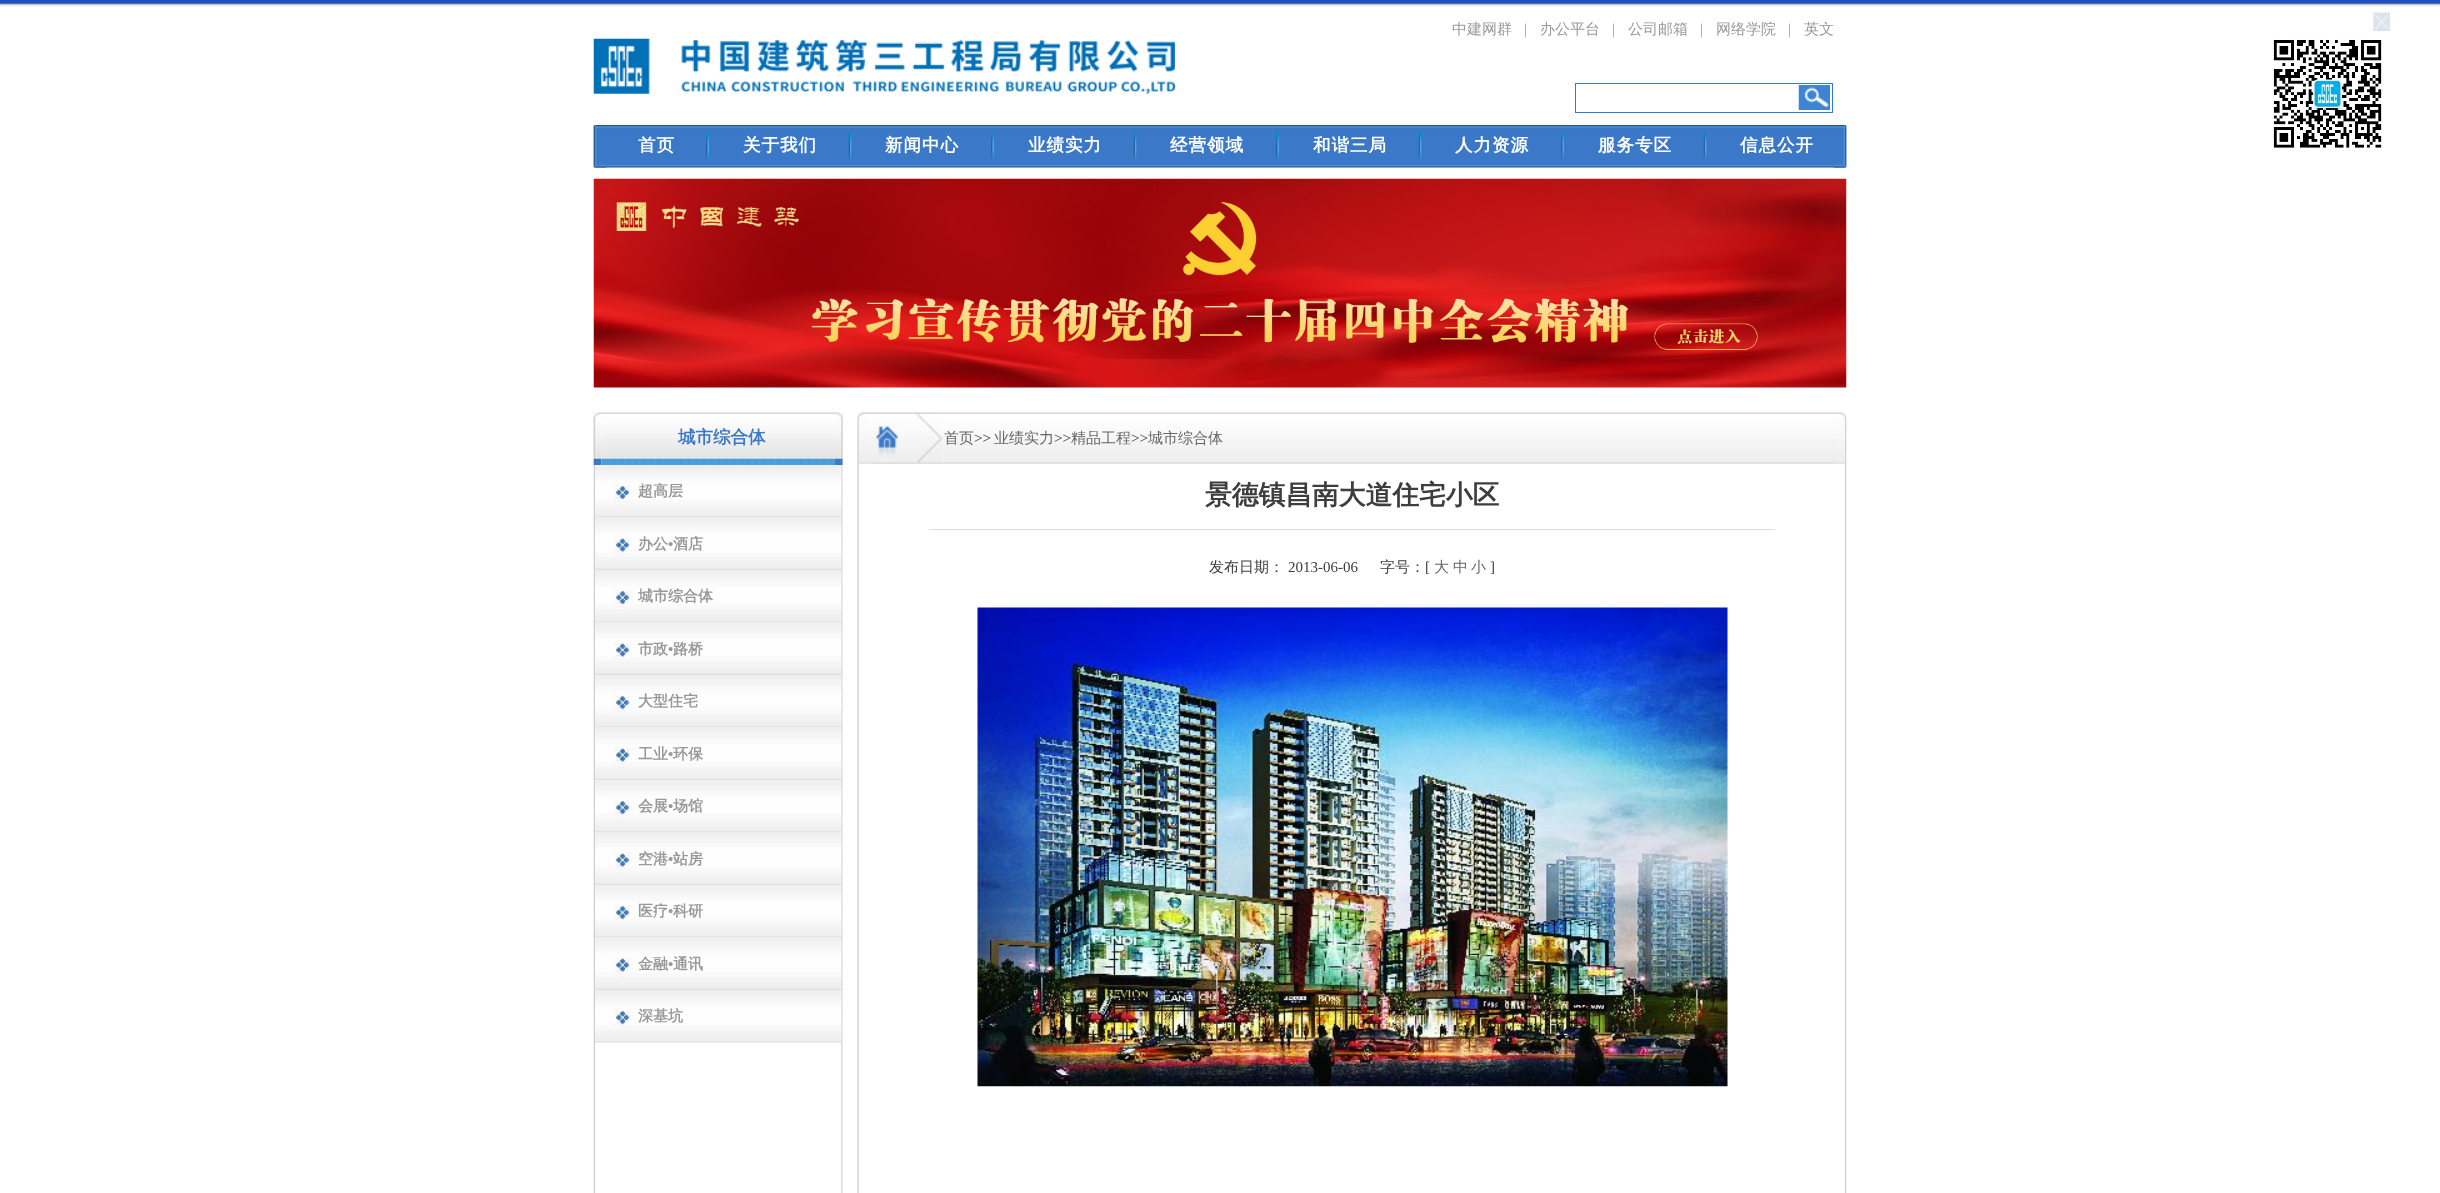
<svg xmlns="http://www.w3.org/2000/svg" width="2440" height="1193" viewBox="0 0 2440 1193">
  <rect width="100%" height="100%" fill="#ffffff"/>
  <image x="0" y="0" width="2440" height="7" href="img1.png"/>
  <image x="593" y="38" width="582" height="56" href="img2.png"/>
  <text x="1452" y="34" font-family="WenQuanYi Zen Hei" font-size="15" font-weight="500" fill="#999999">中建网群</text>
  <text x="1524" y="34" font-family="Liberation Serif" font-size="15" fill="#999999">|</text>
  <text x="1540" y="34" font-family="WenQuanYi Zen Hei" font-size="15" font-weight="500" fill="#999999">办公平台</text>
  <text x="1612" y="34" font-family="Liberation Serif" font-size="15" fill="#999999">|</text>
  <text x="1628" y="34" font-family="WenQuanYi Zen Hei" font-size="15" font-weight="500" fill="#999999">公司邮箱</text>
  <text x="1700" y="34" font-family="Liberation Serif" font-size="15" fill="#999999">|</text>
  <text x="1716" y="34" font-family="WenQuanYi Zen Hei" font-size="15" font-weight="500" fill="#999999">网络学院</text>
  <text x="1788" y="34" font-family="Liberation Serif" font-size="15" fill="#999999">|</text>
  <text x="1804" y="34" font-family="WenQuanYi Zen Hei" font-size="15" font-weight="500" fill="#999999">英文</text>
  <rect x="1575.5" y="83.5" width="257" height="29" fill="none" stroke="#277eca"/>
  <image x="1798" y="85" width="32" height="25" href="img3.png"/>
  <image x="2372" y="12" width="18" height="20" href="img4.png"/>
  <image x="2273" y="31" width="117" height="117" href="img5.png"/>
  <image x="593" y="125" width="1254" height="43" href="img6.png"/>
  <image x="593" y="125" width="14" height="43" href="img7.png"/>
  <text x="638" y="151" font-family="WenQuanYi Zen Hei" font-size="17.5" font-weight="bold" letter-spacing="1" fill="#ffffff">首页</text>
  <image x="1833" y="125" width="14" height="43" href="img8.png"/>
  <image x="706" y="132" width="3" height="28" href="img9.png"/>
  <text x="743" y="151" font-family="WenQuanYi Zen Hei" font-size="17.5" font-weight="bold" letter-spacing="1" fill="#ffffff">关于我们</text>
  <image x="848" y="132" width="4" height="28" href="img10.png"/>
  <text x="885" y="151" font-family="WenQuanYi Zen Hei" font-size="17.5" font-weight="bold" letter-spacing="1" fill="#ffffff">新闻中心</text>
  <image x="991" y="132" width="3" height="28" href="img9.png"/>
  <text x="1028" y="151" font-family="WenQuanYi Zen Hei" font-size="17.5" font-weight="bold" letter-spacing="1" fill="#ffffff">业绩实力</text>
  <image x="1133" y="132" width="4" height="28" href="img10.png"/>
  <text x="1170" y="151" font-family="WenQuanYi Zen Hei" font-size="17.5" font-weight="bold" letter-spacing="1" fill="#ffffff">经营领域</text>
  <image x="1276" y="132" width="3" height="28" href="img9.png"/>
  <text x="1313" y="151" font-family="WenQuanYi Zen Hei" font-size="17.5" font-weight="bold" letter-spacing="1" fill="#ffffff">和谐三局</text>
  <image x="1418" y="132" width="4" height="28" href="img10.png"/>
  <text x="1455" y="151" font-family="WenQuanYi Zen Hei" font-size="17.5" font-weight="bold" letter-spacing="1" fill="#ffffff">人力资源</text>
  <image x="1561" y="132" width="3" height="28" href="img9.png"/>
  <text x="1598" y="151" font-family="WenQuanYi Zen Hei" font-size="17.5" font-weight="bold" letter-spacing="1" fill="#ffffff">服务专区</text>
  <image x="1703" y="132" width="4" height="28" href="img10.png"/>
  <text x="1740" y="151" font-family="WenQuanYi Zen Hei" font-size="17.5" font-weight="bold" letter-spacing="1" fill="#ffffff">信息公开</text>
  <image x="593" y="178" width="1254" height="210" href="img11.png"/>
  <image x="593" y="412" width="250" height="781" href="img12.png"/>
  <image x="593" y="412" width="9" height="53" href="img13.png"/>
  <image x="601" y="412" width="234" height="53" href="img14.png"/>
  <text x="678" y="443" font-family="WenQuanYi Zen Hei" font-size="17.5" font-weight="bold" fill="#3b79c7">城市综合体</text>
  <image x="835" y="412" width="8" height="53" href="img15.png"/>
  <image x="595" y="465" width="247" height="53" href="img16.png"/>
  <text x="638" y="496" font-family="WenQuanYi Zen Hei" font-size="15" font-weight="bold" fill="#999999">超高层</text>
  <image x="595" y="518" width="247" height="52" href="img17.png"/>
  <text x="638" y="549" font-family="WenQuanYi Zen Hei" font-size="15" font-weight="bold" fill="#999999">办公</text>
  <text x="668" y="549" font-family="Liberation Serif" font-size="15" font-weight="bold" fill="#999999">•</text>
  <text x="673" y="549" font-family="WenQuanYi Zen Hei" font-size="15" font-weight="bold" fill="#999999">酒店</text>
  <image x="595" y="570" width="247" height="53" href="img18.png"/>
  <text x="638" y="601" font-family="WenQuanYi Zen Hei" font-size="15" font-weight="bold" fill="#999999">城市综合体</text>
  <image x="595" y="623" width="247" height="52" href="img17.png"/>
  <text x="638" y="654" font-family="WenQuanYi Zen Hei" font-size="15" font-weight="bold" fill="#999999">市政</text>
  <text x="668" y="654" font-family="Liberation Serif" font-size="15" font-weight="bold" fill="#999999">•</text>
  <text x="673" y="654" font-family="WenQuanYi Zen Hei" font-size="15" font-weight="bold" fill="#999999">路桥</text>
  <image x="595" y="675" width="247" height="53" href="img16.png"/>
  <text x="638" y="706" font-family="WenQuanYi Zen Hei" font-size="15" font-weight="bold" fill="#999999">大型住宅</text>
  <image x="595" y="728" width="247" height="52" href="img17.png"/>
  <text x="638" y="759" font-family="WenQuanYi Zen Hei" font-size="15" font-weight="bold" fill="#999999">工业</text>
  <text x="668" y="759" font-family="Liberation Serif" font-size="15" font-weight="bold" fill="#999999">•</text>
  <text x="673" y="759" font-family="WenQuanYi Zen Hei" font-size="15" font-weight="bold" fill="#999999">环保</text>
  <image x="595" y="780" width="247" height="53" href="img16.png"/>
  <text x="638" y="811" font-family="WenQuanYi Zen Hei" font-size="15" font-weight="bold" fill="#999999">会展</text>
  <text x="668" y="811" font-family="Liberation Serif" font-size="15" font-weight="bold" fill="#999999">•</text>
  <text x="673" y="811" font-family="WenQuanYi Zen Hei" font-size="15" font-weight="bold" fill="#999999">场馆</text>
  <image x="595" y="833" width="247" height="52" href="img17.png"/>
  <text x="638" y="864" font-family="WenQuanYi Zen Hei" font-size="15" font-weight="bold" fill="#999999">空港</text>
  <text x="668" y="864" font-family="Liberation Serif" font-size="15" font-weight="bold" fill="#999999">•</text>
  <text x="673" y="864" font-family="WenQuanYi Zen Hei" font-size="15" font-weight="bold" fill="#999999">站房</text>
  <image x="595" y="885" width="247" height="53" href="img16.png"/>
  <text x="638" y="916" font-family="WenQuanYi Zen Hei" font-size="15" font-weight="bold" fill="#999999">医疗</text>
  <text x="668" y="916" font-family="Liberation Serif" font-size="15" font-weight="bold" fill="#999999">•</text>
  <text x="673" y="916" font-family="WenQuanYi Zen Hei" font-size="15" font-weight="bold" fill="#999999">科研</text>
  <image x="595" y="938" width="247" height="52" href="img17.png"/>
  <text x="638" y="969" font-family="WenQuanYi Zen Hei" font-size="15" font-weight="bold" fill="#999999">金融</text>
  <text x="668" y="969" font-family="Liberation Serif" font-size="15" font-weight="bold" fill="#999999">•</text>
  <text x="673" y="969" font-family="WenQuanYi Zen Hei" font-size="15" font-weight="bold" fill="#999999">通讯</text>
  <image x="595" y="990" width="247" height="53" href="img16.png"/>
  <text x="638" y="1021" font-family="WenQuanYi Zen Hei" font-size="15" font-weight="bold" fill="#999999">深基坑</text>
  <image x="857" y="412" width="87" height="52" href="img19.png"/>
  <image x="944" y="412" width="895" height="52" href="img20.png"/>
  <text x="944" y="443" font-family="WenQuanYi Zen Hei" font-size="15" font-weight="500" fill="#666666">首页</text>
  <text x="974" y="443" font-family="Liberation Serif" font-size="15" fill="#3d3d3d">&gt;&gt;</text>
  <text x="994" y="443" font-family="WenQuanYi Zen Hei" font-size="15" font-weight="500" fill="#666666">业绩实力</text>
  <text x="1054" y="443" font-family="Liberation Serif" font-size="15" fill="#3d3d3d">&gt;&gt;</text>
  <text x="1071" y="443" font-family="WenQuanYi Zen Hei" font-size="15" font-weight="500" fill="#666666">精品工程</text>
  <text x="1131" y="443" font-family="Liberation Serif" font-size="15" fill="#3d3d3d">&gt;&gt;</text>
  <text x="1148" y="443" font-family="WenQuanYi Zen Hei" font-size="15" font-weight="500" fill="#666666">城市综合体</text>
  <image x="1839" y="412" width="8" height="52" href="img21.png"/>
  <image x="857" y="463" width="13" height="730" href="img22.png"/>
  <text x="1205" y="504" font-family="WenQuanYi Zen Hei" font-size="26.75" font-weight="bold" fill="#3d3d3d">景德镇昌南大道住宅小区</text>
  <rect x="929" y="529" width="846" height="1" fill="#dddddd"/>
  <text x="1209" y="572" font-family="WenQuanYi Zen Hei" font-size="15" font-weight="500" fill="#3d3d3d">发布日期：</text>
  <text x="1288" y="572" font-family="Liberation Serif" font-size="15" fill="#3d3d3d">2013-06-06</text>
  <text x="1380" y="572" font-family="WenQuanYi Zen Hei" font-size="15" font-weight="500" fill="#3d3d3d">字号：</text>
  <text x="1425" y="572" font-family="Liberation Serif" font-size="15" fill="#3d3d3d">[</text>
  <text x="1434" y="572" font-family="WenQuanYi Zen Hei" font-size="15" font-weight="500" fill="#666666">大</text>
  <text x="1453" y="572" font-family="WenQuanYi Zen Hei" font-size="15" font-weight="500" fill="#666666">中</text>
  <text x="1471" y="572" font-family="WenQuanYi Zen Hei" font-size="15" font-weight="500" fill="#666666">小</text>
  <text x="1490" y="572" font-family="Liberation Serif" font-size="15" fill="#3d3d3d">]</text>
  <image x="977" y="607" width="751" height="480" href="img23.png"/>
  <image x="1834" y="463" width="13" height="730" href="img24.png"/>
</svg>
